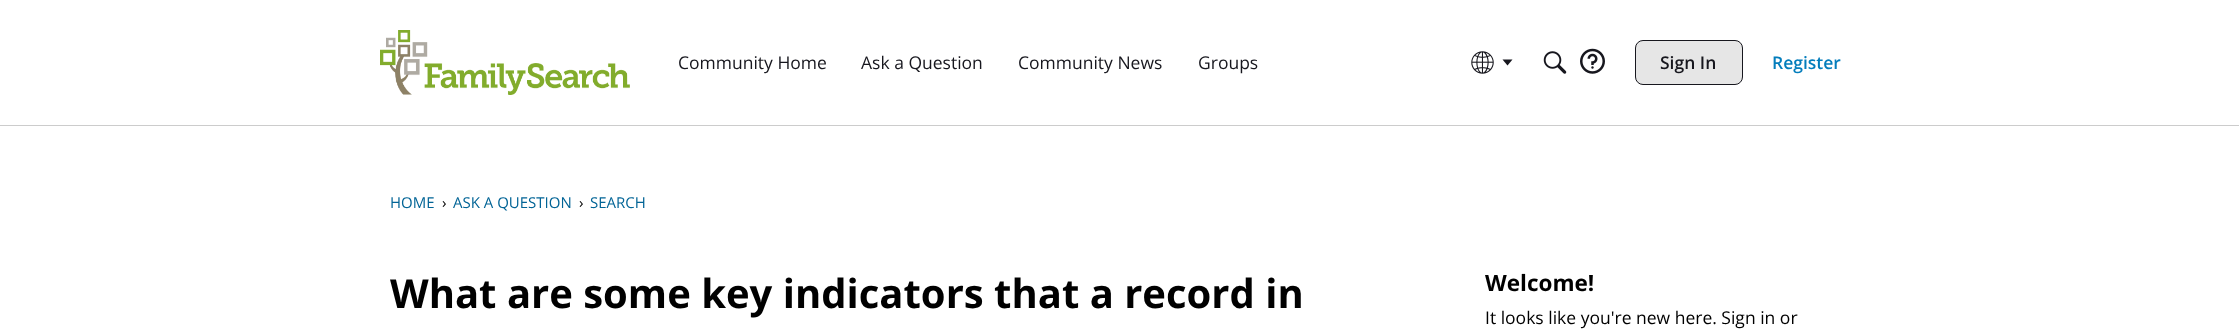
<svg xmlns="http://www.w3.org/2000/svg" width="2239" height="335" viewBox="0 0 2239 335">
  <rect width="100%" height="100%" fill="#ffffff"/>
  <rect x="0" y="125" width="2239" height="1" fill="#cccccc"/>
  <image x="380" y="30" width="250" height="65" href="img1.png"/>
  <text x="678" y="69" font-family="Open Sans" font-size="17.5" fill="#17171e">Community Home</text>
  <text x="861" y="69" font-family="Open Sans" font-size="17.5" fill="#17171e">Ask a Question</text>
  <text x="1018" y="69" font-family="Open Sans" font-size="17.5" fill="#17171e">Community News</text>
  <text x="1198" y="69" font-family="Open Sans" font-size="17.5" fill="#17171e">Groups</text>
  <image x="1471" y="51" width="23" height="23" href="img2.png"/>
  <path d="M1502.5 59.5H1512.5L1507.5 65.5Z" fill="#17171e"/>
  <image x="1543" y="51" width="24" height="23" href="img3.png"/>
  <image x="1580" y="48" width="25" height="26" href="img4.png"/>
  <rect x="1635.5" y="40.5" width="107" height="44" rx="7.5" fill="#e6e6e6" stroke="#17171e"/>
  <text x="1660" y="69" font-family="Open Sans" font-size="17.5" font-weight="600" fill="#17171e">Sign In</text>
  <text x="1772" y="69" font-family="Open Sans" font-size="17.5" font-weight="600" fill="#037dbc">Register</text>
  <text x="390" y="208" font-family="Open Sans" font-size="15" fill="#026496">HOME</text>
  <text x="442" y="208" font-family="Open Sans" font-size="15" fill="#000000">›</text>
  <text x="453" y="208" font-family="Open Sans" font-size="15" fill="#026496">ASK A QUESTION</text>
  <text x="579" y="208" font-family="Open Sans" font-size="15" fill="#000000">›</text>
  <text x="590" y="208" font-family="Open Sans" font-size="15" fill="#026496">SEARCH</text>
  <text x="390" y="308" font-family="Open Sans" font-size="40" font-weight="bold" fill="#000000">What are some key indicators that a record in</text>
  <text x="1485" y="291" font-family="Open Sans" font-size="22.5" font-weight="bold" fill="#000000">Welcome!</text>
  <text x="1485" y="324" font-family="Open Sans" font-size="17.5" fill="#000000">It looks like you're new here. Sign in or</text>
</svg>
